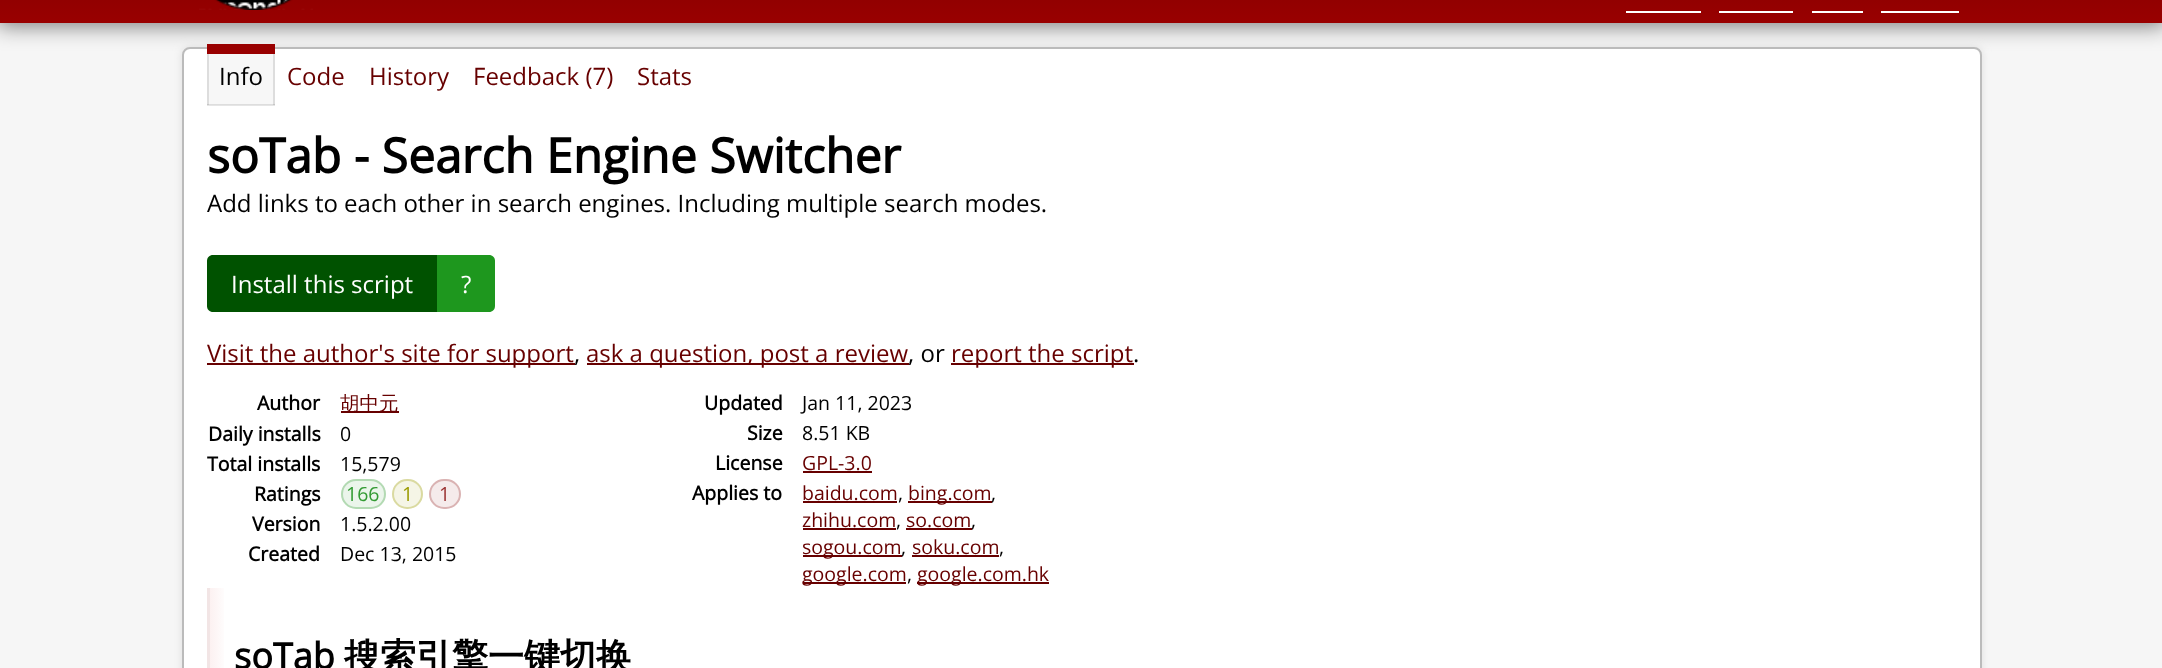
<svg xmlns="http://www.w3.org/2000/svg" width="2162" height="668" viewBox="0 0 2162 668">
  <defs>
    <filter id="blur1" x="-50%" y="-200%" width="200%" height="500%"><feGaussianBlur stdDeviation="11"/></filter>
    <linearGradient id="g1" gradientUnits="userSpaceOnUse" x1="1082" y1="-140" x2="1082" y2="23"><stop offset="0" stop-color="#670000"/><stop offset="1" stop-color="#990000"/></linearGradient>
    <filter id="blur2" x="-50%" y="-200%" width="200%" height="500%"><feGaussianBlur stdDeviation="4"/></filter>
    <linearGradient id="g2" gradientUnits="userSpaceOnUse" x1="210" y1="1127" x2="1956" y2="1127"><stop offset="0" stop-color="#fcf1f1"/><stop offset="0.01" stop-color="#ffffff"/></linearGradient>
  </defs>
  <rect width="100%" height="100%" fill="#f6f6f6"/>
  <rect x="-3" y="-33" width="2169" height="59" fill="#000000" fill-opacity="0.5" filter="url(#blur1)"/>
  <rect x="0" y="0" width="2162" height="23" fill="url(#g1)"/>
  <image x="199" y="0" width="114" height="10" href="img1.png"/>
  <rect x="1626" y="11" width="75" height="2" fill="#ffffff"/>
  <rect x="1719" y="11" width="74" height="2" fill="#ffffff"/>
  <rect x="1812" y="11" width="51" height="2" fill="#ffffff"/>
  <rect x="1881" y="11" width="78" height="2" fill="#ffffff"/>
  <rect x="182" y="47" width="1800" height="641" rx="8" fill="#dddddd" filter="url(#blur2)"/>
  <rect x="183" y="48" width="1798" height="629" rx="7" fill="#ffffff" stroke="#bbbbbb" stroke-width="2"/>
  <rect x="207" y="54" width="68" height="51" fill="#000000" fill-opacity="0.03"/>
  <rect x="207" y="104" width="68" height="2" fill="#000000" fill-opacity="0.1"/>
  <rect x="273" y="54" width="2" height="51" fill="#000000" fill-opacity="0.1"/>
  <rect x="207" y="54" width="2" height="51" fill="#000000" fill-opacity="0.1"/>
  <rect x="207" y="44" width="68" height="10" fill="#990000"/>
  <text x="219" y="85" font-family="Open Sans" font-size="24" fill="#000000">Info</text>
  <text x="287" y="85" font-family="Open Sans" font-size="24" fill="#670000">Code</text>
  <text x="369" y="85" font-family="Open Sans" font-size="24" fill="#670000">History</text>
  <text x="473" y="85" font-family="Open Sans" font-size="24" fill="#670000">Feedback (7)</text>
  <text x="637" y="85" font-family="Open Sans" font-size="24" fill="#670000">Stats</text>
  <text x="207" y="173" font-family="Open Sans" font-size="48" font-weight="bold" fill="#000000">soTab - Search Engine Switcher</text>
  <text x="207" y="212" font-family="Open Sans" font-size="24" fill="#000000">Add links to each other in search engines. Including multiple search modes.</text>
  <path d="M213 255H437V312H213C209.5 312 207 309.5 207 306V261C207 257.5 209.5 255 213 255Z" fill="#005200"/>
  <text x="231" y="293" font-family="Open Sans" font-size="24" fill="#ffffff">Install this script</text>
  <path d="M437 255H489C492.5 255 495 257.5 495 261V306C495 309.5 492.5 312 489 312H437Z" fill="#1e971e"/>
  <text x="461" y="293" font-family="Open Sans" font-size="24" fill="#ffffff">?</text>
  <rect x="207" y="363" width="368" height="2" fill="#670000"/>
  <text x="207" y="362" font-family="Open Sans" font-size="24" fill="#670000">Visit the author's site for support</text>
  <text x="574" y="362" font-family="Open Sans" font-size="24" fill="#000000">,</text>
  <rect x="587" y="363" width="322" height="2" fill="#670000"/>
  <text x="586" y="362" font-family="Open Sans" font-size="24" fill="#670000">ask a question, post a review</text>
  <text x="908" y="362" font-family="Open Sans" font-size="24" fill="#000000">, or</text>
  <rect x="951" y="363" width="183" height="2" fill="#670000"/>
  <text x="951" y="362" font-family="Open Sans" font-size="24" fill="#670000">report the script</text>
  <text x="1133" y="362" font-family="Open Sans" font-size="24" fill="#000000">.</text>
  <text x="257" y="410" font-family="Open Sans" font-size="19.5" font-weight="bold" fill="#000000">Author</text>
  <rect x="341" y="411" width="58" height="2" fill="#670000"/>
  <text x="340" y="410" font-family="WenQuanYi Zen Hei" font-size="19.5" font-weight="500" fill="#670000">胡中元</text>
  <text x="704" y="410" font-family="Open Sans" font-size="19.5" font-weight="bold" fill="#000000">Updated</text>
  <text x="802" y="410" font-family="Open Sans" font-size="19.5" fill="#000000">Jan 11, 2023</text>
  <text x="208" y="441" font-family="Open Sans" font-size="19.5" font-weight="bold" fill="#000000">Daily installs</text>
  <text x="340" y="441" font-family="Open Sans" font-size="19.5" fill="#000000">0</text>
  <text x="747" y="440" font-family="Open Sans" font-size="19.5" font-weight="bold" fill="#000000">Size</text>
  <text x="802" y="440" font-family="Open Sans" font-size="19.5" fill="#000000">8.51 KB</text>
  <text x="207" y="471" font-family="Open Sans" font-size="19.5" font-weight="bold" fill="#000000">Total installs</text>
  <text x="340" y="471" font-family="Open Sans" font-size="19.5" fill="#000000">15,579</text>
  <text x="715" y="470" font-family="Open Sans" font-size="19.5" font-weight="bold" fill="#000000">License</text>
  <text x="802" y="470" font-family="Open Sans" font-size="19.5" fill="#670000">GPL-3.0</text>
  <rect x="803" y="471" width="69" height="2" fill="#670000"/>
  <text x="254" y="501" font-family="Open Sans" font-size="19.5" font-weight="bold" fill="#000000">Ratings</text>
  <rect x="341" y="479" width="45" height="30" rx="15" fill="#ebf5eb"/>
  <rect x="342" y="480" width="43" height="28" rx="14" fill="none" stroke="#339b33" stroke-opacity="0.3" stroke-width="2"/>
  <text x="346" y="501" font-family="Open Sans" font-size="19.5" fill="#339b33">166</text>
  <rect x="392" y="479" width="31" height="30" rx="15" fill="#f5f5e6"/>
  <rect x="393" y="480" width="29" height="28" rx="14" fill="none" stroke="#9b9b00" stroke-opacity="0.3" stroke-width="2"/>
  <text x="402" y="501" font-family="Open Sans" font-size="19.5" fill="#9b9b00">1</text>
  <rect x="429" y="479" width="32" height="30" rx="15" fill="#f5ebeb"/>
  <rect x="430" y="480" width="30" height="28" rx="14" fill="none" stroke="#9b3333" stroke-opacity="0.3" stroke-width="2"/>
  <text x="439" y="501" font-family="Open Sans" font-size="19.5" fill="#9b3333">1</text>
  <text x="692" y="500" font-family="Open Sans" font-size="19.5" font-weight="bold" fill="#000000">Applies to</text>
  <text x="802" y="500" font-family="Open Sans" font-size="19.5" fill="#670000">baidu.com</text>
  <text x="898" y="500" font-family="Open Sans" font-size="19.5" fill="#000000">,</text>
  <rect x="803" y="501" width="94" height="2" fill="#670000"/>
  <rect x="908" y="501" width="84" height="2" fill="#670000"/>
  <text x="908" y="500" font-family="Open Sans" font-size="19.5" fill="#670000">bing.com</text>
  <text x="991" y="500" font-family="Open Sans" font-size="19.5" fill="#000000">,</text>
  <text x="802" y="527" font-family="Open Sans" font-size="19.5" fill="#670000">zhihu.com</text>
  <text x="896" y="527" font-family="Open Sans" font-size="19.5" fill="#000000">,</text>
  <rect x="803" y="528" width="93" height="2" fill="#670000"/>
  <text x="906" y="527" font-family="Open Sans" font-size="19.5" fill="#670000">so.com</text>
  <text x="971" y="527" font-family="Open Sans" font-size="19.5" fill="#000000">,</text>
  <rect x="906" y="528" width="66" height="2" fill="#670000"/>
  <rect x="803" y="555" width="99" height="2" fill="#670000"/>
  <text x="802" y="554" font-family="Open Sans" font-size="19.5" fill="#670000">sogou.com</text>
  <text x="901" y="554" font-family="Open Sans" font-size="19.5" fill="#000000">,</text>
  <text x="912" y="554" font-family="Open Sans" font-size="19.5" fill="#670000">soku.com</text>
  <text x="999" y="554" font-family="Open Sans" font-size="19.5" fill="#000000">,</text>
  <rect x="912" y="555" width="87" height="2" fill="#670000"/>
  <rect x="803" y="582" width="103" height="2" fill="#670000"/>
  <text x="802" y="581" font-family="Open Sans" font-size="19.5" fill="#670000">google.com</text>
  <text x="907" y="581" font-family="Open Sans" font-size="19.5" fill="#000000">,</text>
  <rect x="917" y="582" width="132" height="2" fill="#670000"/>
  <text x="917" y="581" font-family="Open Sans" font-size="19.5" fill="#670000">google.com.hk</text>
  <text x="252" y="531" font-family="Open Sans" font-size="19.5" font-weight="bold" fill="#000000">Version</text>
  <text x="340" y="531" font-family="Open Sans" font-size="19.5" fill="#000000">1.5.2.00</text>
  <text x="248" y="561" font-family="Open Sans" font-size="19.5" font-weight="bold" fill="#000000">Created</text>
  <text x="340" y="561" font-family="Open Sans" font-size="19.5" fill="#000000">Dec 13, 2015</text>
  <rect x="210" y="588" width="14" height="80" fill="url(#g2)"/>
  <rect x="207" y="588" width="3" height="80" fill="#f2e5e5"/>
  <text x="234" y="669" font-family="Open Sans" font-size="36" font-weight="bold" fill="#000000">soTab</text>
  <text x="344" y="669" font-family="WenQuanYi Zen Hei" font-size="36" font-weight="bold" fill="#000000">搜索引擎一键切换</text>
</svg>
